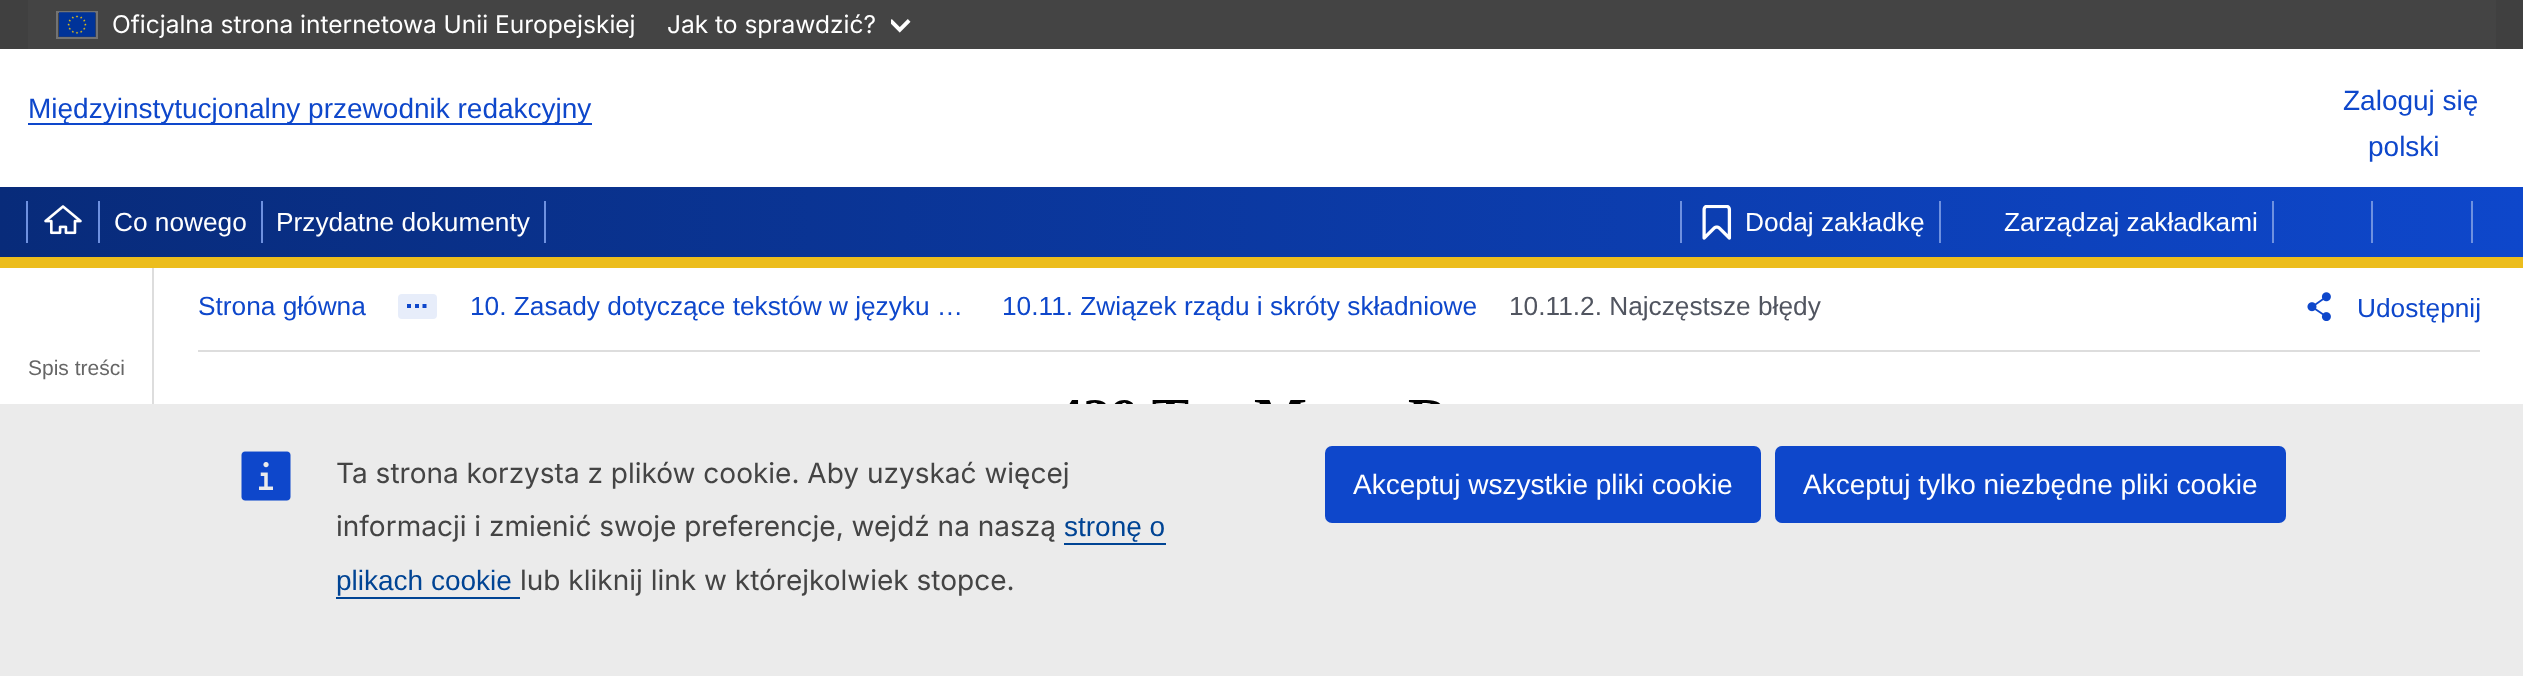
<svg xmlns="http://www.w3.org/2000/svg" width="2523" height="676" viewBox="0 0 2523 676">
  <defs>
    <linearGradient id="g1" gradientUnits="userSpaceOnUse" x1="0" y1="222" x2="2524" y2="222"><stop offset="0" stop-color="#082b7a"/><stop offset="1" stop-color="#0e47cb"/></linearGradient>
  </defs>
  <rect width="100%" height="100%" fill="#ffffff"/>
  <rect x="0" y="0" width="2523" height="49" fill="#404040"/>
  <rect x="28" y="0" width="2468" height="49" fill="#444444"/>
  <rect x="57" y="12" width="40" height="26" fill="none" stroke="#737373" stroke-width="2"/>
  <image x="59" y="12" width="37" height="25" href="img1.png"/>
  <text x="112" y="33" font-family="Inter" font-size="24.5" fill="#ffffff">Oficjalna strona internetowa Unii Europejskiej</text>
  <text x="667" y="33" font-family="Inter" font-size="24.5" fill="#ffffff">Jak to sprawdzić?</text>
  <image x="891" y="19" width="20" height="14" href="img2.png"/>
  <rect x="0" y="404" width="2523" height="272" fill="#ebebeb"/>
  <image x="241" y="451" width="50" height="50" href="img3.png"/>
  <text x="336" y="483" font-family="Inter" font-size="28" fill="#444444">Ta strona korzysta z plików cookie. Aby uzyskać więcej</text>
  <text x="336" y="536" font-family="Inter" font-size="28" fill="#444444">informacji i zmienić swoje preferencje, wejdź na naszą</text>
  <text x="1064" y="536" font-family="Liberation Sans" font-size="28" fill="#004494">stronę o</text>
  <rect x="1064" y="543" width="102" height="2" fill="#004494"/>
  <text x="336" y="590" font-family="Liberation Sans" font-size="28" fill="#004494">plikach cookie</text>
  <rect x="336" y="597" width="184" height="2" fill="#004494"/>
  <text x="520" y="590" font-family="Inter" font-size="28" fill="#444444">lub kliknij link w którejkolwiek stopce.</text>
  <rect x="1325" y="446" width="436" height="77" rx="7" fill="#0e47cb"/>
  <text x="1353" y="494" font-family="Liberation Sans" font-size="28" fill="#ffffff">Akceptuj wszystkie pliki cookie</text>
  <rect x="1775" y="446" width="511" height="77" rx="7" fill="#0e47cb"/>
  <text x="1803" y="494" font-family="Liberation Sans" font-size="28" fill="#ffffff">Akceptuj tylko niezbędne pliki cookie</text>
  <rect x="28" y="123" width="564" height="2" fill="#0e47cb"/>
  <text x="28" y="118" font-family="Liberation Sans" font-size="28" fill="#0e47cb">Międzyinstytucjonalny przewodnik redakcyjny</text>
  <text x="2343" y="110" font-family="Liberation Sans" font-size="28" fill="#0e47cb">Zaloguj się</text>
  <text x="2368" y="156" font-family="Liberation Sans" font-size="28" fill="#0e47cb">polski</text>
  <rect x="0" y="187" width="2523" height="70" fill="url(#g1)"/>
  <rect x="0" y="257" width="2523" height="11" fill="#ecbd1d"/>
  <rect x="26" y="201" width="2" height="42" fill="#6e91e0"/>
  <image x="44" y="205" width="38" height="30" href="img4.png"/>
  <rect x="98" y="201" width="2" height="42" fill="#6e91e0"/>
  <text x="114" y="231" font-family="Liberation Sans" font-size="26.25" fill="#ffffff">Co nowego</text>
  <rect x="261" y="201" width="2" height="42" fill="#6e91e0"/>
  <text x="276" y="231" font-family="Liberation Sans" font-size="26.25" fill="#ffffff">Przydatne dokumenty</text>
  <rect x="544" y="201" width="2" height="42" fill="#6e91e0"/>
  <rect x="1680" y="201" width="2" height="42" fill="#6e91e0"/>
  <image x="1702" y="205" width="30" height="35" href="img5.png"/>
  <text x="1745" y="231" font-family="Liberation Sans" font-size="26.25" fill="#ffffff">Dodaj zakładkę</text>
  <rect x="1939" y="201" width="2" height="42" fill="#6e91e0"/>
  <text x="2004" y="231" font-family="Liberation Sans" font-size="26.25" fill="#ffffff">Zarządzaj zakładkami</text>
  <rect x="2272" y="201" width="2" height="42" fill="#6e91e0"/>
  <rect x="2371" y="201" width="2" height="42" fill="#6e91e0"/>
  <rect x="2471" y="201" width="2" height="42" fill="#6e91e0"/>
  <text x="198" y="315" font-family="Liberation Sans" font-size="26.25" fill="#0e47cb">Strona główna</text>
  <rect x="398" y="294" width="39" height="25" rx="4" fill="#e7edfa"/>
  <path d="M407 308V304H411V308ZM415 308V304H419V308ZM422.5 308V304H426.5V308Z" fill="#0e47cb"/>
  <text x="470" y="315" font-family="Liberation Sans" font-size="26.25" fill="#0e47cb">10. Zasady dotyczące tekstów w języku …</text>
  <text x="1002" y="315" font-family="Liberation Sans" font-size="26.25" fill="#0e47cb">10.11. Związek rządu i skróty składniowe</text>
  <text x="1509" y="315" font-family="Liberation Sans" font-size="26.25" fill="#515560">10.11.2. Najczęstsze błędy</text>
  <image x="2307" y="292" width="24" height="29" href="img6.png"/>
  <text x="2357" y="317" font-family="Liberation Sans" font-size="26.25" fill="#0e47cb">Udostępnij</text>
  <rect x="198" y="350" width="2282" height="2" fill="#dddddd"/>
  <image x="1069" y="400" width="372" height="4" href="img7.png"/>
  <rect x="152" y="268" width="2" height="136" fill="#dddddd"/>
  <text x="28" y="375" font-family="Liberation Sans" font-size="21" fill="#666666">Spis treści</text>
</svg>
